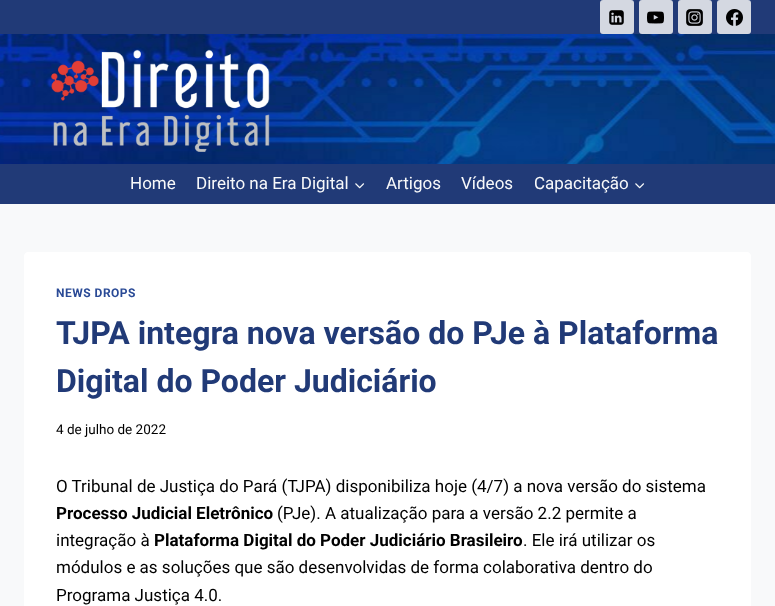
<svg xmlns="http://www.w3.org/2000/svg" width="775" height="606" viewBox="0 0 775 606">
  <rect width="100%" height="100%" fill="#f8f9fa"/>
  <rect x="0" y="0" width="775" height="204" fill="#213a77"/>
  <rect x="600" y="0" width="34" height="34" rx="3" fill="#d4d8e1"/>
  <image x="609" y="10" width="15" height="15" href="img1.png"/>
  <rect x="639" y="0" width="34" height="34" rx="3" fill="#d4d8e1"/>
  <image x="647" y="11" width="17" height="13" href="img2.png"/>
  <rect x="678" y="0" width="34" height="34" rx="3" fill="#d4d8e1"/>
  <image x="686" y="9" width="17" height="17" href="img3.png"/>
  <rect x="717" y="0" width="34" height="34" rx="3" fill="#d4d8e1"/>
  <image x="726" y="9" width="17" height="17" href="img4.png"/>
  <image x="0" y="34" width="775" height="130" href="img5.png"/>
  <image x="50" y="49" width="220" height="103" href="img6.png"/>
  <text x="130" y="189" font-family="Roboto" font-size="17" fill="#f8f9fa">Home</text>
  <text x="196" y="189" font-family="Roboto" font-size="17" fill="#f8f9fa">Direito na Era Digital</text>
  <image x="355" y="183" width="10" height="6" href="img7.png"/>
  <text x="386" y="189" font-family="Roboto" font-size="17" fill="#f8f9fa">Artigos</text>
  <text x="461" y="189" font-family="Roboto" font-size="17" fill="#f8f9fa">Vídeos</text>
  <text x="534" y="189" font-family="Roboto" font-size="17" fill="#f8f9fa">Capacitação</text>
  <image x="635" y="183" width="10" height="6" href="img7.png"/>
  <path d="M28 252H747C749 252 751 254 751 256V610H24V256C24 254 26 252 28 252Z" fill="#ffffff"/>
  <text x="56" y="297" font-family="Roboto" font-size="12" font-weight="bold" letter-spacing="0.5" fill="#2a4a96">NEWS DROPS</text>
  <text x="56" y="344" font-family="Roboto" font-size="32" font-weight="bold" fill="#213a77">TJPA integra nova versão do PJe à Plataforma</text>
  <text x="56" y="392" font-family="Roboto" font-size="32" font-weight="bold" fill="#213a77">Digital do Poder Judiciário</text>
  <text x="56" y="434" font-family="Roboto" font-size="13.5" fill="#000000">4 de julho de 2022</text>
  <text x="56" y="492" font-family="Roboto" font-size="17" fill="#000000">O Tribunal de Justiça do Pará (TJPA) disponibiliza hoje (4/7) a nova versão do sistema</text>
  <text x="56" y="519" font-family="Roboto" font-size="17" font-weight="bold" fill="#000000">Processo Judicial Eletrônico</text>
  <text x="277" y="519" font-family="Roboto" font-size="17" fill="#000000">(PJe). A atualização para a versão 2.2 permite a</text>
  <text x="56" y="546" font-family="Roboto" font-size="17" fill="#000000">integração à</text>
  <text x="154" y="546" font-family="Roboto" font-size="17" font-weight="bold" fill="#000000">Plataforma Digital do Poder Judiciário Brasileiro</text>
  <text x="523" y="546" font-family="Roboto" font-size="17" fill="#000000">. Ele irá utilizar os</text>
  <text x="56" y="573" font-family="Roboto" font-size="17" fill="#000000">módulos e as soluções que são desenvolvidas de forma colaborativa dentro do</text>
  <text x="56" y="601" font-family="Roboto" font-size="17" fill="#000000">Programa Justiça 4.0.</text>
</svg>
